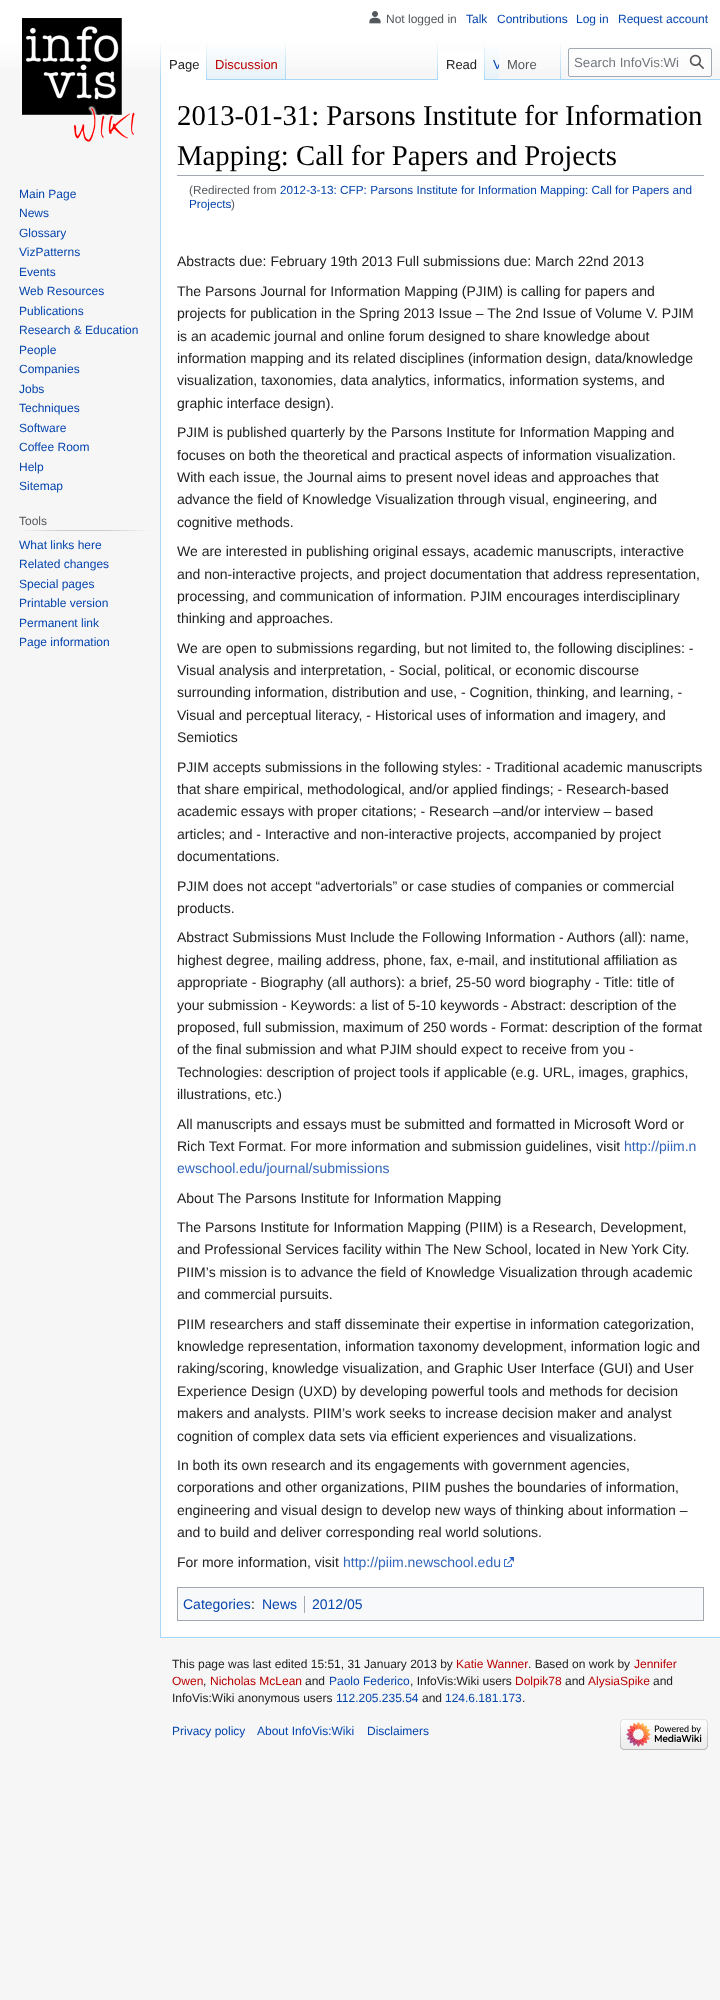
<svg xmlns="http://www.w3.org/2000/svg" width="720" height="2000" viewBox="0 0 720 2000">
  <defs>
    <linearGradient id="g1" gradientUnits="userSpaceOnUse" x1="360" y1="0" x2="360" y2="80"><stop offset="0.5" stop-color="#ffffff"/><stop offset="1" stop-color="#f6f6f6"/></linearGradient>
    <linearGradient id="g2" gradientUnits="userSpaceOnUse" x1="161" y1="40" x2="161" y2="80"><stop offset="0" stop-color="#a7d7f9" stop-opacity="0"/><stop offset="1" stop-color="#a7d7f9"/></linearGradient>
    <linearGradient id="g3" gradientUnits="userSpaceOnUse" x1="207" y1="40" x2="207" y2="80"><stop offset="0" stop-color="#ffffff"/><stop offset="1" stop-color="#a7d7f9"/></linearGradient>
    <linearGradient id="g4" gradientUnits="userSpaceOnUse" x1="247" y1="80" x2="247" y2="40"><stop offset="0" stop-color="#77c1f6"/><stop offset="0.03" stop-color="#e8f2f8"/><stop offset="1" stop-color="#ffffff"/></linearGradient>
    <linearGradient id="g5" gradientUnits="userSpaceOnUse" x1="286" y1="40" x2="286" y2="80"><stop offset="0" stop-color="#a7d7f9" stop-opacity="0"/><stop offset="1" stop-color="#a7d7f9"/></linearGradient>
    <linearGradient id="g6" gradientUnits="userSpaceOnUse" x1="438" y1="40" x2="438" y2="80"><stop offset="0" stop-color="#a7d7f9" stop-opacity="0"/><stop offset="1" stop-color="#a7d7f9"/></linearGradient>
    <linearGradient id="g7" gradientUnits="userSpaceOnUse" x1="485" y1="40" x2="485" y2="80"><stop offset="0" stop-color="#ffffff"/><stop offset="1" stop-color="#a7d7f9"/></linearGradient>
    <linearGradient id="g8" gradientUnits="userSpaceOnUse" x1="492" y1="80" x2="492" y2="40"><stop offset="0" stop-color="#77c1f6"/><stop offset="0.03" stop-color="#e8f2f8"/><stop offset="1" stop-color="#ffffff"/></linearGradient>
    <clipPath id="clip1"><rect x="485" y="40" width="14" height="40"/></clipPath>
    <linearGradient id="g9" gradientUnits="userSpaceOnUse" x1="561" y1="40" x2="561" y2="80"><stop offset="0" stop-color="#a7d7f9" stop-opacity="0"/><stop offset="1" stop-color="#a7d7f9"/></linearGradient>
    <linearGradient id="g10" gradientUnits="userSpaceOnUse" x1="19" y1="531" x2="150" y2="531"><stop offset="0" stop-color="#f6f6f6"/><stop offset="0.33" stop-color="#c8ccd1"/><stop offset="0.66" stop-color="#c8ccd1"/><stop offset="1" stop-color="#f6f6f6"/></linearGradient>
  </defs>
  <rect width="100%" height="100%" fill="#f6f6f6"/>
  <rect x="0" y="0" width="720" height="69" fill="url(#g1)"/>
  <image x="369" y="11" width="12" height="13" href="img1.png"/>
  <text x="386" y="23" font-family="Liberation Sans" font-size="12" fill="#54595d">Not logged in</text>
  <text x="466" y="23" font-family="Liberation Sans" font-size="12" fill="#0645ad">Talk</text>
  <text x="497" y="23" font-family="Liberation Sans" font-size="12" fill="#0645ad">Contributions</text>
  <text x="576" y="23" font-family="Liberation Sans" font-size="12" fill="#0645ad">Log in</text>
  <text x="618" y="23" font-family="Liberation Sans" font-size="12" fill="#0645ad">Request account</text>
  <rect x="160" y="1637" width="560" height="1" fill="#a7d7f9"/>
  <rect x="160" y="79" width="1" height="1559" fill="#a7d7f9"/>
  <rect x="160" y="40" width="1" height="40" fill="url(#g2)"/>
  <rect x="161" y="51" width="45" height="29" fill="#ffffff"/>
  <rect x="206" y="40" width="1" height="40" fill="url(#g3)"/>
  <text x="169" y="69" font-family="Liberation Sans" font-size="13" fill="#202122">Page</text>
  <rect x="207" y="46" width="79" height="34" fill="url(#g4)"/>
  <rect x="285" y="40" width="1" height="40" fill="url(#g5)"/>
  <text x="215" y="69" font-family="Liberation Sans" font-size="13" fill="#ba0000">Discussion</text>
  <rect x="286" y="79" width="434" height="1" fill="#a7d7f9"/>
  <rect x="437" y="40" width="1" height="40" fill="url(#g6)"/>
  <rect x="438" y="51" width="46" height="29" fill="#ffffff"/>
  <rect x="484" y="40" width="1" height="40" fill="url(#g7)"/>
  <text x="446" y="69" font-family="Liberation Sans" font-size="13" fill="#202122">Read</text>
  <rect x="485" y="46" width="14" height="33" fill="url(#g8)"/>
  <g clip-path="url(#clip1)">
    <text x="493" y="69" font-family="Liberation Sans" font-size="13" fill="#0645ad">V</text>
  </g>
  <rect x="560" y="40" width="1" height="40" fill="url(#g9)"/>
  <text x="507" y="69" font-family="Liberation Sans" font-size="13" fill="#54595d">More</text>
  <rect x="568.5" y="48.5" width="143" height="28" rx="1.5" fill="#ffffff" fill-opacity="0.5" stroke="#a2a9b1"/>
  <text x="574" y="67" font-family="Liberation Sans" font-size="13.25" fill="#72777d">Search InfoVis:Wi</text>
  <image x="689" y="54" width="15" height="15" href="img2.png"/>
  <image x="22" y="18" width="113" height="124" href="img3.png"/>
  <text x="19" y="198" font-family="Liberation Sans" font-size="12" fill="#0645ad">Main Page</text>
  <text x="19" y="217" font-family="Liberation Sans" font-size="12" fill="#0645ad">News</text>
  <text x="19" y="237" font-family="Liberation Sans" font-size="12" fill="#0645ad">Glossary</text>
  <text x="19" y="256" font-family="Liberation Sans" font-size="12" fill="#0645ad">VizPatterns</text>
  <text x="19" y="276" font-family="Liberation Sans" font-size="12" fill="#0645ad">Events</text>
  <text x="19" y="295" font-family="Liberation Sans" font-size="12" fill="#0645ad">Web Resources</text>
  <text x="19" y="315" font-family="Liberation Sans" font-size="12" fill="#0645ad">Publications</text>
  <text x="19" y="334" font-family="Liberation Sans" font-size="12" fill="#0645ad">Research &amp; Education</text>
  <text x="19" y="354" font-family="Liberation Sans" font-size="12" fill="#0645ad">People</text>
  <text x="19" y="373" font-family="Liberation Sans" font-size="12" fill="#0645ad">Companies</text>
  <text x="19" y="393" font-family="Liberation Sans" font-size="12" fill="#0645ad">Jobs</text>
  <text x="19" y="412" font-family="Liberation Sans" font-size="12" fill="#0645ad">Techniques</text>
  <text x="19" y="432" font-family="Liberation Sans" font-size="12" fill="#0645ad">Software</text>
  <text x="19" y="451" font-family="Liberation Sans" font-size="12" fill="#0645ad">Coffee Room</text>
  <text x="19" y="471" font-family="Liberation Sans" font-size="12" fill="#0645ad">Help</text>
  <text x="19" y="490" font-family="Liberation Sans" font-size="12" fill="#0645ad">Sitemap</text>
  <rect x="19" y="530" width="131" height="1" fill="url(#g10)"/>
  <text x="19" y="525" font-family="Liberation Sans" font-size="12" fill="#54595d">Tools</text>
  <text x="19" y="549" font-family="Liberation Sans" font-size="12" fill="#0645ad">What links here</text>
  <text x="19" y="568" font-family="Liberation Sans" font-size="12" fill="#0645ad">Related changes</text>
  <text x="19" y="588" font-family="Liberation Sans" font-size="12" fill="#0645ad">Special pages</text>
  <text x="19" y="607" font-family="Liberation Sans" font-size="12" fill="#0645ad">Printable version</text>
  <text x="19" y="627" font-family="Liberation Sans" font-size="12" fill="#0645ad">Permanent link</text>
  <text x="19" y="646" font-family="Liberation Sans" font-size="12" fill="#0645ad">Page information</text>
  <rect x="161" y="80" width="559" height="1557" fill="#ffffff"/>
  <rect x="177" y="175" width="527" height="1" fill="#a2a9b1"/>
  <text x="177" y="125" font-family="Liberation Serif" font-size="28.75" fill="#000000">2013-01-31: Parsons Institute for Information</text>
  <text x="177" y="165" font-family="Liberation Serif" font-size="28.75" fill="#000000">Mapping: Call for Papers and Projects</text>
  <text x="189" y="194" font-family="Liberation Sans" font-size="11.75" fill="#54595d">(Redirected from</text>
  <text x="280" y="194" font-family="Liberation Sans" font-size="11.75" fill="#0645ad">2012-3-13: CFP: Parsons Institute for Information Mapping: Call for Papers and</text>
  <text x="189" y="208" font-family="Liberation Sans" font-size="11.75" fill="#0645ad">Projects</text>
  <text x="231" y="208" font-family="Liberation Sans" font-size="11.75" fill="#54595d">)</text>
  <text x="177" y="266" font-family="Liberation Sans" font-size="14" fill="#202122">Abstracts due: February 19th 2013 Full submissions due: March 22nd 2013</text>
  <text x="177" y="296" font-family="Liberation Sans" font-size="14" fill="#202122">The Parsons Journal for Information Mapping (PJIM) is calling for papers and</text>
  <text x="177" y="318" font-family="Liberation Sans" font-size="14" fill="#202122">projects for publication in the Spring 2013 Issue – The 2nd Issue of Volume V. PJIM</text>
  <text x="177" y="341" font-family="Liberation Sans" font-size="14" fill="#202122">is an academic journal and online forum designed to share knowledge about</text>
  <text x="177" y="363" font-family="Liberation Sans" font-size="14" fill="#202122">information mapping and its related disciplines (information design, data/knowledge</text>
  <text x="177" y="385" font-family="Liberation Sans" font-size="14" fill="#202122">visualization, taxonomies, data analytics, informatics, information systems, and</text>
  <text x="177" y="408" font-family="Liberation Sans" font-size="14" fill="#202122">graphic interface design).</text>
  <text x="177" y="437" font-family="Liberation Sans" font-size="14" fill="#202122">PJIM is published quarterly by the Parsons Institute for Information Mapping and</text>
  <text x="177" y="460" font-family="Liberation Sans" font-size="14" fill="#202122">focuses on both the theoretical and practical aspects of information visualization.</text>
  <text x="177" y="482" font-family="Liberation Sans" font-size="14" fill="#202122">With each issue, the Journal aims to present novel ideas and approaches that</text>
  <text x="177" y="504" font-family="Liberation Sans" font-size="14" fill="#202122">advance the field of Knowledge Visualization through visual, engineering, and</text>
  <text x="177" y="527" font-family="Liberation Sans" font-size="14" fill="#202122">cognitive methods.</text>
  <text x="177" y="556" font-family="Liberation Sans" font-size="14" fill="#202122">We are interested in publishing original essays, academic manuscripts, interactive</text>
  <text x="177" y="579" font-family="Liberation Sans" font-size="14" fill="#202122">and non-interactive projects, and project documentation that address representation,</text>
  <text x="177" y="601" font-family="Liberation Sans" font-size="14" fill="#202122">processing, and communication of information. PJIM encourages interdisciplinary</text>
  <text x="177" y="623" font-family="Liberation Sans" font-size="14" fill="#202122">thinking and approaches.</text>
  <text x="177" y="653" font-family="Liberation Sans" font-size="14" fill="#202122">We are open to submissions regarding, but not limited to, the following disciplines: -</text>
  <text x="177" y="675" font-family="Liberation Sans" font-size="14" fill="#202122">Visual analysis and interpretation, - Social, political, or economic discourse</text>
  <text x="177" y="697" font-family="Liberation Sans" font-size="14" fill="#202122">surrounding information, distribution and use, - Cognition, thinking, and learning, -</text>
  <text x="177" y="720" font-family="Liberation Sans" font-size="14" fill="#202122">Visual and perceptual literacy, - Historical uses of information and imagery, and</text>
  <text x="177" y="742" font-family="Liberation Sans" font-size="14" fill="#202122">Semiotics</text>
  <text x="177" y="772" font-family="Liberation Sans" font-size="14" fill="#202122">PJIM accepts submissions in the following styles: - Traditional academic manuscripts</text>
  <text x="177" y="794" font-family="Liberation Sans" font-size="14" fill="#202122">that share empirical, methodological, and/or applied findings; - Research-based</text>
  <text x="177" y="816" font-family="Liberation Sans" font-size="14" fill="#202122">academic essays with proper citations; - Research –and/or interview – based</text>
  <text x="177" y="839" font-family="Liberation Sans" font-size="14" fill="#202122">articles; and - Interactive and non-interactive projects, accompanied by project</text>
  <text x="177" y="861" font-family="Liberation Sans" font-size="14" fill="#202122">documentations.</text>
  <text x="177" y="891" font-family="Liberation Sans" font-size="14" fill="#202122">PJIM does not accept “advertorials” or case studies of companies or commercial</text>
  <text x="177" y="913" font-family="Liberation Sans" font-size="14" fill="#202122">products.</text>
  <text x="177" y="942" font-family="Liberation Sans" font-size="14" fill="#202122">Abstract Submissions Must Include the Following Information - Authors (all): name,</text>
  <text x="177" y="965" font-family="Liberation Sans" font-size="14" fill="#202122">highest degree, mailing address, phone, fax, e-mail, and institutional affiliation as</text>
  <text x="177" y="987" font-family="Liberation Sans" font-size="14" fill="#202122">appropriate - Biography (all authors): a brief, 25-50 word biography - Title: title of</text>
  <text x="177" y="1010" font-family="Liberation Sans" font-size="14" fill="#202122">your submission - Keywords: a list of 5-10 keywords - Abstract: description of the</text>
  <text x="177" y="1032" font-family="Liberation Sans" font-size="14" fill="#202122">proposed, full submission, maximum of 250 words - Format: description of the format</text>
  <text x="177" y="1054" font-family="Liberation Sans" font-size="14" fill="#202122">of the final submission and what PJIM should expect to receive from you -</text>
  <text x="177" y="1077" font-family="Liberation Sans" font-size="14" fill="#202122">Technologies: description of project tools if applicable (e.g. URL, images, graphics,</text>
  <text x="177" y="1099" font-family="Liberation Sans" font-size="14" fill="#202122">illustrations, etc.)</text>
  <text x="177" y="1129" font-family="Liberation Sans" font-size="14" fill="#202122">All manuscripts and essays must be submitted and formatted in Microsoft Word or</text>
  <text x="177" y="1151" font-family="Liberation Sans" font-size="14" fill="#202122">Rich Text Format. For more information and submission guidelines, visit</text>
  <text x="624" y="1151" font-family="Liberation Sans" font-size="14" fill="#3366bb">http://piim.n</text>
  <text x="177" y="1173" font-family="Liberation Sans" font-size="14" fill="#3366bb">ewschool.edu/journal/submissions</text>
  <text x="177" y="1203" font-family="Liberation Sans" font-size="14" fill="#202122">About The Parsons Institute for Information Mapping</text>
  <text x="177" y="1232" font-family="Liberation Sans" font-size="14" fill="#202122">The Parsons Institute for Information Mapping (PIIM) is a Research, Development,</text>
  <text x="177" y="1254" font-family="Liberation Sans" font-size="14" fill="#202122">and Professional Services facility within The New School, located in New York City.</text>
  <text x="177" y="1277" font-family="Liberation Sans" font-size="14" fill="#202122">PIIM’s mission is to advance the field of Knowledge Visualization through academic</text>
  <text x="177" y="1299" font-family="Liberation Sans" font-size="14" fill="#202122">and commercial pursuits.</text>
  <text x="177" y="1329" font-family="Liberation Sans" font-size="14" fill="#202122">PIIM researchers and staff disseminate their expertise in information categorization,</text>
  <text x="177" y="1351" font-family="Liberation Sans" font-size="14" fill="#202122">knowledge representation, information taxonomy development, information logic and</text>
  <text x="177" y="1373" font-family="Liberation Sans" font-size="14" fill="#202122">raking/scoring, knowledge visualization, and Graphic User Interface (GUI) and User</text>
  <text x="177" y="1396" font-family="Liberation Sans" font-size="14" fill="#202122">Experience Design (UXD) by developing powerful tools and methods for decision</text>
  <text x="177" y="1418" font-family="Liberation Sans" font-size="14" fill="#202122">makers and analysts. PIIM’s work seeks to increase decision maker and analyst</text>
  <text x="177" y="1441" font-family="Liberation Sans" font-size="14" fill="#202122">cognition of complex data sets via efficient experiences and visualizations.</text>
  <text x="177" y="1470" font-family="Liberation Sans" font-size="14" fill="#202122">In both its own research and its engagements with government agencies,</text>
  <text x="177" y="1492" font-family="Liberation Sans" font-size="14" fill="#202122">corporations and other organizations, PIIM pushes the boundaries of information,</text>
  <text x="177" y="1515" font-family="Liberation Sans" font-size="14" fill="#202122">engineering and visual design to develop new ways of thinking about information –</text>
  <text x="177" y="1537" font-family="Liberation Sans" font-size="14" fill="#202122">and to build and deliver corresponding real world solutions.</text>
  <text x="177" y="1567" font-family="Liberation Sans" font-size="14" fill="#202122">For more information, visit</text>
  <text x="343" y="1567" font-family="Liberation Sans" font-size="14" fill="#3366bb">http://piim.newschool.edu</text>
  <image x="504" y="1557" width="10" height="10" href="img4.png"/>
  <rect x="177.5" y="1587.5" width="526" height="33" fill="#f8f9fa" stroke="#a2a9b1"/>
  <text x="183" y="1609" font-family="Liberation Sans" font-size="14" fill="#0645ad">Categories</text>
  <text x="251" y="1609" font-family="Liberation Sans" font-size="14" fill="#202122">:</text>
  <text x="262" y="1609" font-family="Liberation Sans" font-size="14" fill="#0645ad">News</text>
  <rect x="304" y="1596" width="1" height="17" fill="#a2a9b1"/>
  <text x="312" y="1609" font-family="Liberation Sans" font-size="14" fill="#0645ad">2012/05</text>
  <text x="172" y="1668" font-family="Liberation Sans" font-size="12" fill="#202122">This page was last edited 15:51, 31 January 2013 by</text>
  <text x="456" y="1668" font-family="Liberation Sans" font-size="12" fill="#ba0000">Katie Wanner</text>
  <text x="528" y="1668" font-family="Liberation Sans" font-size="12" fill="#202122">. Based on work by</text>
  <text x="634" y="1668" font-family="Liberation Sans" font-size="12" fill="#ba0000">Jennifer</text>
  <text x="172" y="1685" font-family="Liberation Sans" font-size="12" fill="#ba0000">Owen</text>
  <text x="203" y="1685" font-family="Liberation Sans" font-size="12" fill="#202122">,</text>
  <text x="210" y="1685" font-family="Liberation Sans" font-size="12" fill="#ba0000">Nicholas McLean</text>
  <text x="305" y="1685" font-family="Liberation Sans" font-size="12" fill="#202122">and</text>
  <text x="329" y="1685" font-family="Liberation Sans" font-size="12" fill="#0645ad">Paolo Federico</text>
  <text x="410" y="1685" font-family="Liberation Sans" font-size="12" fill="#202122">, InfoVis:Wiki users</text>
  <text x="515" y="1685" font-family="Liberation Sans" font-size="12" fill="#ba0000">Dolpik78</text>
  <text x="565" y="1685" font-family="Liberation Sans" font-size="12" fill="#202122">and</text>
  <text x="588" y="1685" font-family="Liberation Sans" font-size="12" fill="#ba0000">AlysiaSpike</text>
  <text x="653" y="1685" font-family="Liberation Sans" font-size="12" fill="#202122">and</text>
  <text x="172" y="1702" font-family="Liberation Sans" font-size="12" fill="#202122">InfoVis:Wiki anonymous users</text>
  <text x="336" y="1702" font-family="Liberation Sans" font-size="12" fill="#0645ad">112.205.235.54</text>
  <text x="422" y="1702" font-family="Liberation Sans" font-size="12" fill="#202122">and</text>
  <text x="445" y="1702" font-family="Liberation Sans" font-size="12" fill="#0645ad">124.6.181.173</text>
  <text x="522" y="1702" font-family="Liberation Sans" font-size="12" fill="#202122">.</text>
  <text x="172" y="1735" font-family="Liberation Sans" font-size="12" fill="#0645ad">Privacy policy</text>
  <text x="257" y="1735" font-family="Liberation Sans" font-size="12" fill="#0645ad">About InfoVis:Wiki</text>
  <text x="367" y="1735" font-family="Liberation Sans" font-size="12" fill="#0645ad">Disclaimers</text>
  <image x="620" y="1719" width="88" height="31" href="img5.png"/>
</svg>
